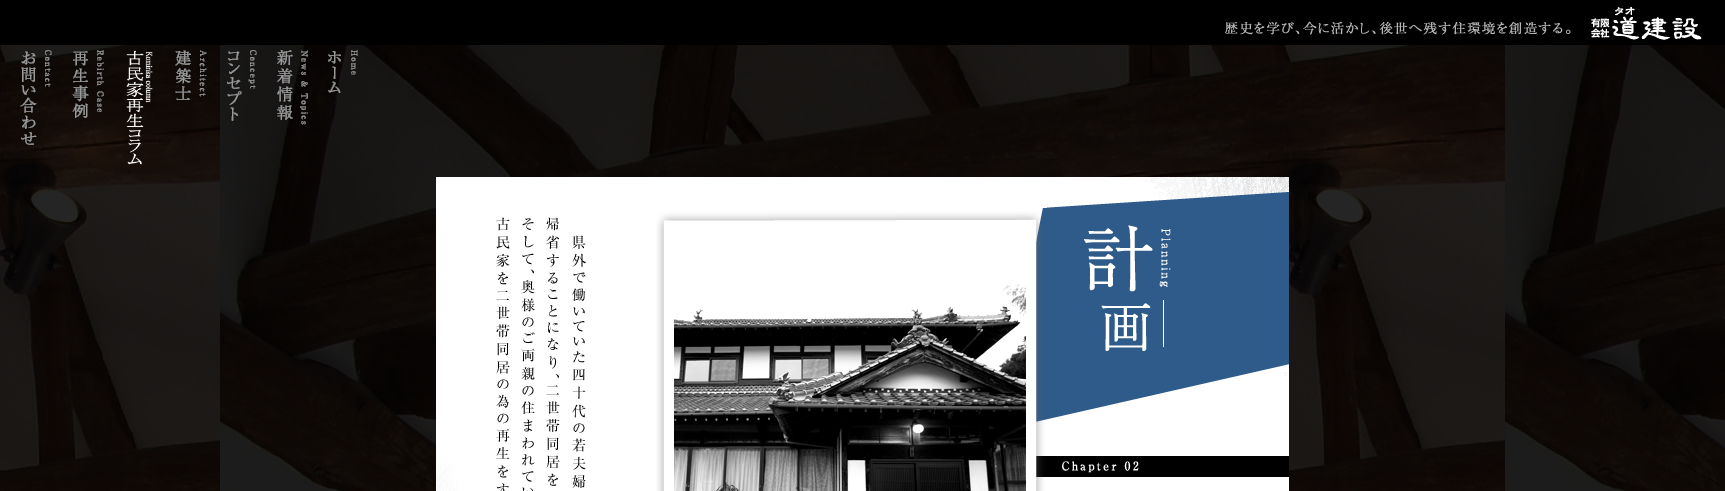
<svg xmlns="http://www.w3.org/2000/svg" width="1725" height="491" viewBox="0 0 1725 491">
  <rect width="100%" height="100%" fill="#ffffff"/>
  <image x="0" y="45" width="1725" height="446" href="img1.png"/>
  <rect x="0" y="0" width="1725" height="45" fill="#000000"/>
  <image x="1225" y="21" width="346" height="14" href="img2.png"/>
  <image x="1591" y="7" width="111" height="33" href="img3.png"/>
  <image x="20" y="50" width="32" height="95" href="img4.png"/>
  <image x="72" y="50" width="32" height="68" href="img5.png"/>
  <image x="126" y="50" width="27" height="115" href="img6.png"/>
  <image x="175" y="50" width="32" height="50" href="img7.png"/>
  <image x="227" y="50" width="30" height="71" href="img8.png"/>
  <image x="277" y="50" width="31" height="75" href="img9.png"/>
  <image x="328" y="50" width="30" height="43" href="img10.png"/>
  <rect x="436" y="177" width="853" height="314" fill="#ffffff"/>
  <image x="437" y="464" width="21" height="27" href="img11.png"/>
  <image x="496" y="217" width="90" height="274" href="img12.png"/>
  <image x="656" y="208" width="391" height="283" href="img13.png"/>
  <image x="1047" y="177" width="242" height="243" href="img14.png"/>
  <image x="1047" y="456" width="242" height="21" href="img15.png"/>
</svg>
